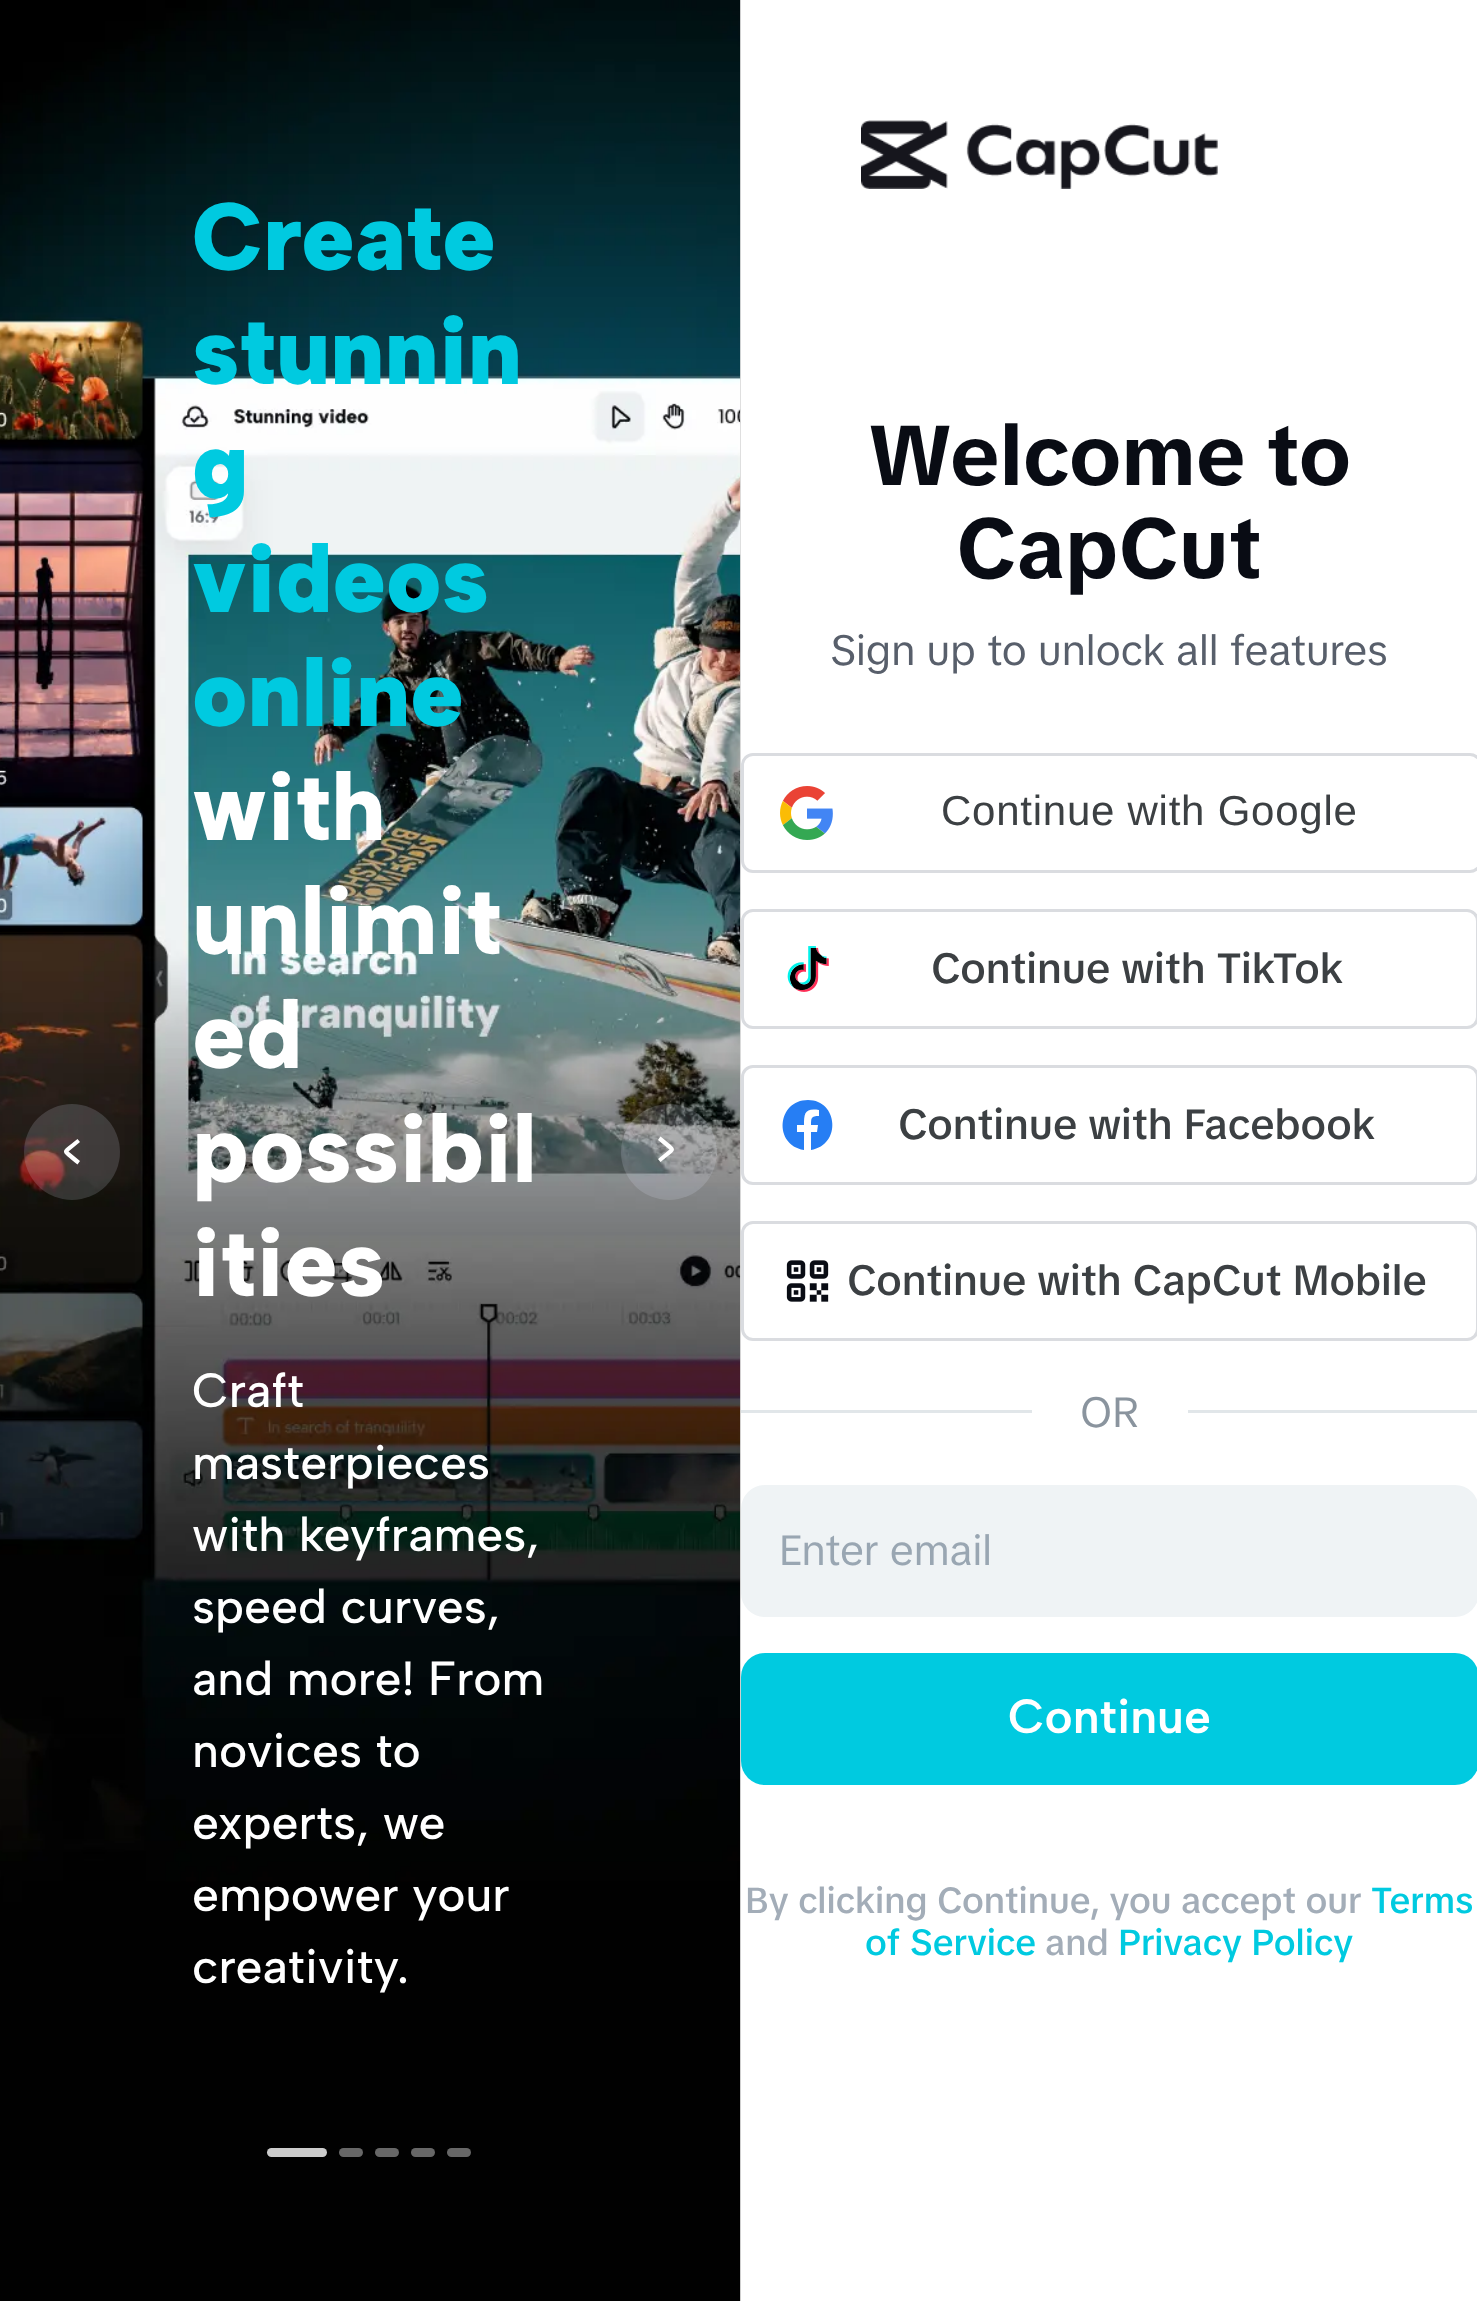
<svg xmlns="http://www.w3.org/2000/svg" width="1477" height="2301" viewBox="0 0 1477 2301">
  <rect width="100%" height="100%" fill="#ffffff"/>
  <rect x="740" y="0" width="1" height="2301" fill="#dddddd"/>
  <image x="0" y="0" width="741" height="2301" href="img1.png"/>
  <circle cx="72" cy="1152" r="48" fill="#e5ecff" fill-opacity="0.16"/>
  <path d="M68.5 1151.5L80 1161L77.5 1164.5C59.5 1149.5 59.5 1153.5 77.5 1139L80 1142Z" fill="#ffffff"/>
  <text x="192" y="270" font-family="Albert Sans" font-size="96" font-weight="900" fill="#00cae0">Create</text>
  <text x="192" y="384" font-family="Albert Sans" font-size="96" font-weight="900" fill="#00cae0">stunnin</text>
  <text x="192" y="498" font-family="Albert Sans" font-size="96" font-weight="900" fill="#00cae0">g</text>
  <text x="192" y="612" font-family="Albert Sans" font-size="96" font-weight="900" fill="#00cae0">videos</text>
  <text x="192" y="726" font-family="Albert Sans" font-size="96" font-weight="900" fill="#00cae0">online</text>
  <text x="192" y="840" font-family="Albert Sans" font-size="96" font-weight="800" fill="#ffffff">with</text>
  <text x="192" y="954" font-family="Albert Sans" font-size="96" font-weight="800" fill="#ffffff">unlimit</text>
  <text x="192" y="1068" font-family="Albert Sans" font-size="96" font-weight="800" fill="#ffffff">ed</text>
  <text x="192" y="1182" font-family="Albert Sans" font-size="96" font-weight="800" fill="#ffffff">possibil</text>
  <text x="192" y="1296" font-family="Albert Sans" font-size="96" font-weight="800" fill="#ffffff">ities</text>
  <text x="192" y="1407" font-family="Albert Sans" font-size="48" font-weight="500" fill="#ffffff">Craft</text>
  <text x="192" y="1479" font-family="Albert Sans" font-size="48" font-weight="500" fill="#ffffff">masterpieces</text>
  <text x="192" y="1551" font-family="Albert Sans" font-size="48" font-weight="500" fill="#ffffff">with keyframes,</text>
  <text x="192" y="1623" font-family="Albert Sans" font-size="48" font-weight="500" fill="#ffffff">speed curves,</text>
  <text x="192" y="1695" font-family="Albert Sans" font-size="48" font-weight="500" fill="#ffffff">and more! From</text>
  <text x="192" y="1767" font-family="Albert Sans" font-size="48" font-weight="500" fill="#ffffff">novices to</text>
  <text x="192" y="1839" font-family="Albert Sans" font-size="48" font-weight="500" fill="#ffffff">experts, we</text>
  <text x="192" y="1911" font-family="Albert Sans" font-size="48" font-weight="500" fill="#ffffff">empower your</text>
  <text x="192" y="1983" font-family="Albert Sans" font-size="48" font-weight="500" fill="#ffffff">creativity.</text>
  <rect x="267" y="2148" width="60" height="9" rx="4.5" fill="#cccccc"/>
  <rect x="339" y="2148" width="24" height="9" rx="4.5" fill="#676767"/>
  <rect x="375" y="2148" width="24" height="9" rx="4.5" fill="#676767"/>
  <rect x="411" y="2148" width="24" height="9" rx="4.5" fill="#676767"/>
  <rect x="447" y="2148" width="24" height="9" rx="4.5" fill="#676767"/>
  <circle cx="669" cy="1152" r="48" fill="#e5ecff" fill-opacity="0.16"/>
  <path d="M669.5 1149.5L658 1140L660.5 1136.5C678.5 1151.5 678.5 1147.5 660.5 1162L658 1159Z" fill="#ffffff"/>
  <image x="861" y="120" width="357" height="69" href="img2.png"/>
  <text x="868" y="485" font-family="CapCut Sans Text" font-size="84" font-weight="bold" fill="#090c14">Welcome to</text>
  <text x="956" y="578" font-family="CapCut Sans Text" font-size="84" font-weight="bold" fill="#090c14">CapCut</text>
  <text x="830" y="665" font-family="CapCut Sans Text" font-size="42" fill="#585f6b">Sign up to unlock all features</text>
  <rect x="742.5" y="754.5" width="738" height="117" rx="10.5" fill="none" stroke="#dadce0" stroke-width="3"/>
  <image x="780" y="786" width="53" height="54" href="img3.png"/>
  <text x="941" y="825" font-family="Liberation Sans" font-size="42" letter-spacing="0.75" fill="#3c4043">Continue with Google</text>
  <rect x="742.5" y="910.5" width="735" height="117" rx="10.5" fill="none" stroke="#dadce0" stroke-width="3"/>
  <image x="787" y="946" width="42" height="46" href="img4.png"/>
  <text x="931" y="983" font-family="CapCut Sans Text" font-size="42" font-weight="500" fill="#3c4043">Continue with TikTok</text>
  <rect x="742.5" y="1066.5" width="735" height="117" rx="10.5" fill="none" stroke="#dadce0" stroke-width="3"/>
  <path d="M808 1100C777 1100 773 1145 804 1150V1132H797V1125H804C804 1113 805 1108 819 1110V1116C811 1116 811 1118 811 1125H818L817 1132H811V1150C842 1145 838 1100 808 1100Z" fill="#267ef4"/>
  <text x="898" y="1139" font-family="CapCut Sans Text" font-size="42" font-weight="500" fill="#3c4043">Continue with Facebook</text>
  <rect x="742.5" y="1222.5" width="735" height="117" rx="10.5" fill="none" stroke="#dadce0" stroke-width="3"/>
  <image x="786" y="1260" width="43" height="42" href="img5.png"/>
  <text x="847" y="1295" font-family="CapCut Sans Text" font-size="42" font-weight="500" fill="#3c4043">Continue with CapCut Mobile</text>
  <rect x="741" y="1410" width="291" height="3" fill="#e1e6e9"/>
  <text x="1080" y="1427" font-family="CapCut Sans Text" font-size="42" fill="#8a949e">OR</text>
  <rect x="1188" y="1410" width="289" height="3" fill="#e1e6e9"/>
  <rect x="741" y="1485" width="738" height="132" rx="24" fill="#eff3f5"/>
  <text x="779" y="1565" font-family="CapCut Sans Text" font-size="42" fill="#99a6b2">Enter email</text>
  <rect x="741" y="1653" width="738" height="132" rx="24" fill="#00cae0"/>
  <text x="1008" y="1733" font-family="Albert Sans" font-size="48" font-weight="600" fill="#ffffff">Continue</text>
  <text x="745" y="1913" font-family="CapCut Sans Text" font-size="36" font-weight="500" fill="#a3adb8">By clicking Continue, you accept our</text>
  <text x="1371" y="1913" font-family="CapCut Sans Text" font-size="36" font-weight="500" fill="#00cae0">Terms</text>
  <text x="865" y="1955" font-family="CapCut Sans Text" font-size="36" font-weight="500" fill="#00cae0">of Service</text>
  <text x="1045" y="1955" font-family="CapCut Sans Text" font-size="36" font-weight="500" fill="#a3adb8">and</text>
  <text x="1118" y="1955" font-family="CapCut Sans Text" font-size="36" font-weight="500" fill="#00cae0">Privacy Policy</text>
</svg>
